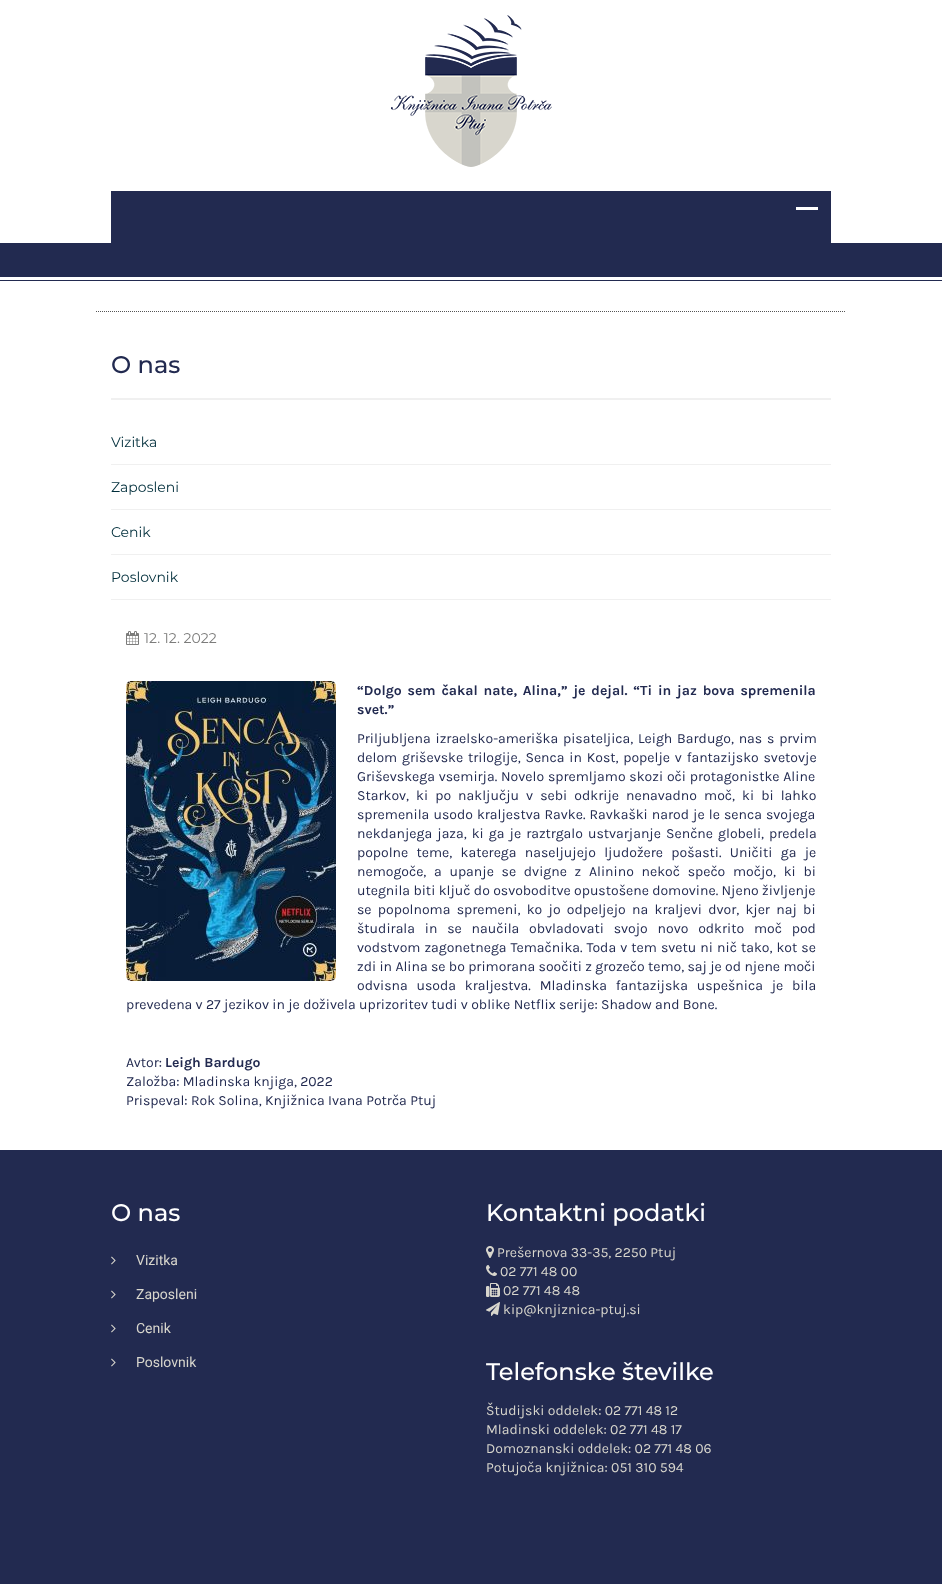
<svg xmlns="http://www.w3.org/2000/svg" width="942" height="1584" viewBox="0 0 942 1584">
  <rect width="100%" height="100%" fill="#ffffff"/>
  <image x="391" y="15" width="161" height="152" href="img1.png"/>
  <rect x="111" y="191" width="720" height="52" fill="#222a50"/>
  <rect x="796" y="207" width="22" height="3" fill="#ffffff"/>
  <rect x="0" y="243" width="942" height="34" fill="#222a50"/>
  <rect x="0" y="280" width="942" height="1" fill="#222a50"/>
  <path d="M96 311.5H846" fill="none" stroke="#555555" stroke-dasharray="1 1"/>
  <rect x="111" y="398" width="720" height="2" fill="#f0f0f0"/>
  <text x="111" y="373" font-family="Montserrat" font-size="24" font-weight="500" fill="#222a50">O nas</text>
  <rect x="111" y="464" width="720" height="1" fill="#f0f0f0"/>
  <text x="111" y="447" font-family="Montserrat" font-size="14" fill="#002e3b">Vizitka</text>
  <rect x="111" y="509" width="720" height="1" fill="#f0f0f0"/>
  <text x="111" y="492" font-family="Montserrat" font-size="14" fill="#002e3b">Zaposleni</text>
  <rect x="111" y="554" width="720" height="1" fill="#f0f0f0"/>
  <text x="111" y="537" font-family="Montserrat" font-size="14" fill="#002e3b">Cenik</text>
  <rect x="111" y="599" width="720" height="1" fill="#f0f0f0"/>
  <text x="111" y="582" font-family="Montserrat" font-size="14" fill="#002e3b">Poslovnik</text>
  <image x="126" y="631" width="13" height="14" href="img2.png"/>
  <text x="144" y="643" font-family="Montserrat" font-size="14" fill="#7c7c7b">12. 12. 2022</text>
  <image x="126" y="681" width="210" height="300" href="img3.png"/>
  <text x="357" y="695" word-spacing="2.25" font-family="Karla" font-size="14" font-weight="bold" fill="#222a50">“Dolgo sem čakal nate, Alina,” je dejal. “Ti in jaz bova spremenila</text>
  <text x="357" y="714" font-family="Karla" font-size="14" font-weight="bold" fill="#222a50">svet.”</text>
  <text x="357" y="743" word-spacing="1.5" font-family="Karla" font-size="14" fill="#222a50">Priljubljena izraelsko-ameriška pisateljica, Leigh Bardugo, nas s prvim</text>
  <text x="357" y="762" word-spacing="1.5" font-family="Karla" font-size="14" fill="#222a50">delom griševske trilogije, Senca in Kost, popelje v fantazijsko svetovje</text>
  <text x="357" y="781" word-spacing="0.5" font-family="Karla" font-size="14" fill="#222a50">Griševskega vsemirja. Novelo spremljamo skozi oči protagonistke Aline</text>
  <text x="357" y="800" word-spacing="3.75" font-family="Karla" font-size="14" fill="#222a50">Starkov, ki po naključju v sebi odkrije nenavadno moč, ki bi lahko</text>
  <text x="357" y="819" word-spacing="0.75" font-family="Karla" font-size="14" fill="#222a50">spremenila usodo kraljestva Ravke. Ravkaški narod je le senca svojega</text>
  <text x="357" y="838" word-spacing="1.75" font-family="Karla" font-size="14" fill="#222a50">nekdanjega jaza, ki ga je raztrgalo ustvarjanje Senčne globeli, predela</text>
  <text x="357" y="857" word-spacing="5" font-family="Karla" font-size="14" fill="#222a50">popolne teme, katerega naseljujejo ljudožere pošasti. Uničiti ga je</text>
  <text x="357" y="876" word-spacing="4.4" font-family="Karla" font-size="14" fill="#222a50">nemogoče, a upanje se dvigne z Alinino nekoč spečo močjo, ki bi</text>
  <text x="357" y="895" font-family="Karla" font-size="14" fill="#222a50">utegnila biti ključ do osvoboditve opustošene domovine. Njeno življenje</text>
  <text x="357" y="914" word-spacing="3" font-family="Karla" font-size="14" fill="#222a50">se popolnoma spremeni, ko jo odpeljejo na kraljevi dvor, kjer naj bi</text>
  <text x="357" y="933" word-spacing="6.5" font-family="Karla" font-size="14" fill="#222a50">študirala in se naučila obvladovati svojo novo odkrito moč pod</text>
  <text x="357" y="952" word-spacing="0.75" font-family="Karla" font-size="14" fill="#222a50">vodstvom zagonetnega Temačnika. Toda v tem svetu ni nič tako, kot se</text>
  <text x="357" y="971" font-family="Karla" font-size="14" fill="#222a50">zdi in Alina se bo primorana soočiti z grozečo temo, saj je od njene moči</text>
  <text x="357" y="990" word-spacing="5.5" font-family="Karla" font-size="14" fill="#222a50">odvisna usoda kraljestva. Mladinska fantazijska uspešnica je bila</text>
  <text x="126" y="1009" font-family="Karla" font-size="14" fill="#222a50">prevedena v 27 jezikov in je doživela uprizoritev tudi v oblike Netflix serije: Shadow and Bone.</text>
  <text x="126" y="1067" font-family="Karla" font-size="14" fill="#222a50">Avtor:</text>
  <text x="165" y="1067" font-family="Karla" font-size="14" font-weight="bold" fill="#222a50">Leigh Bardugo</text>
  <text x="126" y="1086" font-family="Karla" font-size="14" fill="#222a50">Založba: Mladinska knjiga, 2022</text>
  <text x="126" y="1105" font-family="Karla" font-size="14" fill="#222a50">Prispeval: Rok Solina, Knjižnica Ivana Potrča Ptuj</text>
  <rect x="0" y="1150" width="942" height="434" fill="#222a50"/>
  <text x="111" y="1221" font-family="Montserrat" font-size="24" font-weight="500" fill="#ffffff">O nas</text>
  <image x="111" y="1256" width="5" height="9" href="img4.png"/>
  <text x="136" y="1265" font-family="Roboto" font-size="14" fill="#d8d6cd">Vizitka</text>
  <image x="111" y="1290" width="5" height="9" href="img4.png"/>
  <text x="136" y="1299" font-family="Roboto" font-size="14" fill="#d8d6cd">Zaposleni</text>
  <image x="111" y="1324" width="5" height="9" href="img4.png"/>
  <text x="136" y="1333" font-family="Roboto" font-size="14" fill="#d8d6cd">Cenik</text>
  <image x="111" y="1358" width="5" height="9" href="img4.png"/>
  <text x="136" y="1367" font-family="Roboto" font-size="14" fill="#d8d6cd">Poslovnik</text>
  <text x="486" y="1221" font-family="Montserrat" font-size="24" font-weight="500" fill="#ffffff">Kontaktni podatki</text>
  <image x="486" y="1246" width="8" height="12" href="img5.png"/>
  <text x="497" y="1257" font-family="Karla" font-size="14" fill="#d8d6cd">Prešernova 33-35, 2250 Ptuj</text>
  <image x="486" y="1265" width="11" height="11" href="img6.png"/>
  <text x="500" y="1276" font-family="Karla" font-size="14" fill="#d8d6cd">02 771 48 00</text>
  <image x="486" y="1283" width="14" height="14" href="img7.png"/>
  <text x="503" y="1295" font-family="Karla" font-size="14" fill="#d8d6cd">02 771 48 48</text>
  <image x="486" y="1302" width="14" height="14" href="img8.png"/>
  <text x="503" y="1314" font-family="Karla" font-size="14" fill="#d8d6cd">kip@knjiznica-ptuj.si</text>
  <text x="486" y="1380" font-family="Montserrat" font-size="24" font-weight="500" fill="#ffffff">Telefonske številke</text>
  <text x="486" y="1415" font-family="Karla" font-size="14" fill="#d8d6cd">Študijski oddelek: 02 771 48 12</text>
  <text x="486" y="1434" font-family="Karla" font-size="14" fill="#d8d6cd">Mladinski oddelek: 02 771 48 17</text>
  <text x="486" y="1453" font-family="Karla" font-size="14" fill="#d8d6cd">Domoznanski oddelek: 02 771 48 06</text>
  <text x="486" y="1472" font-family="Karla" font-size="14" fill="#d8d6cd">Potujoča knjižnica: 051 310 594</text>
</svg>
